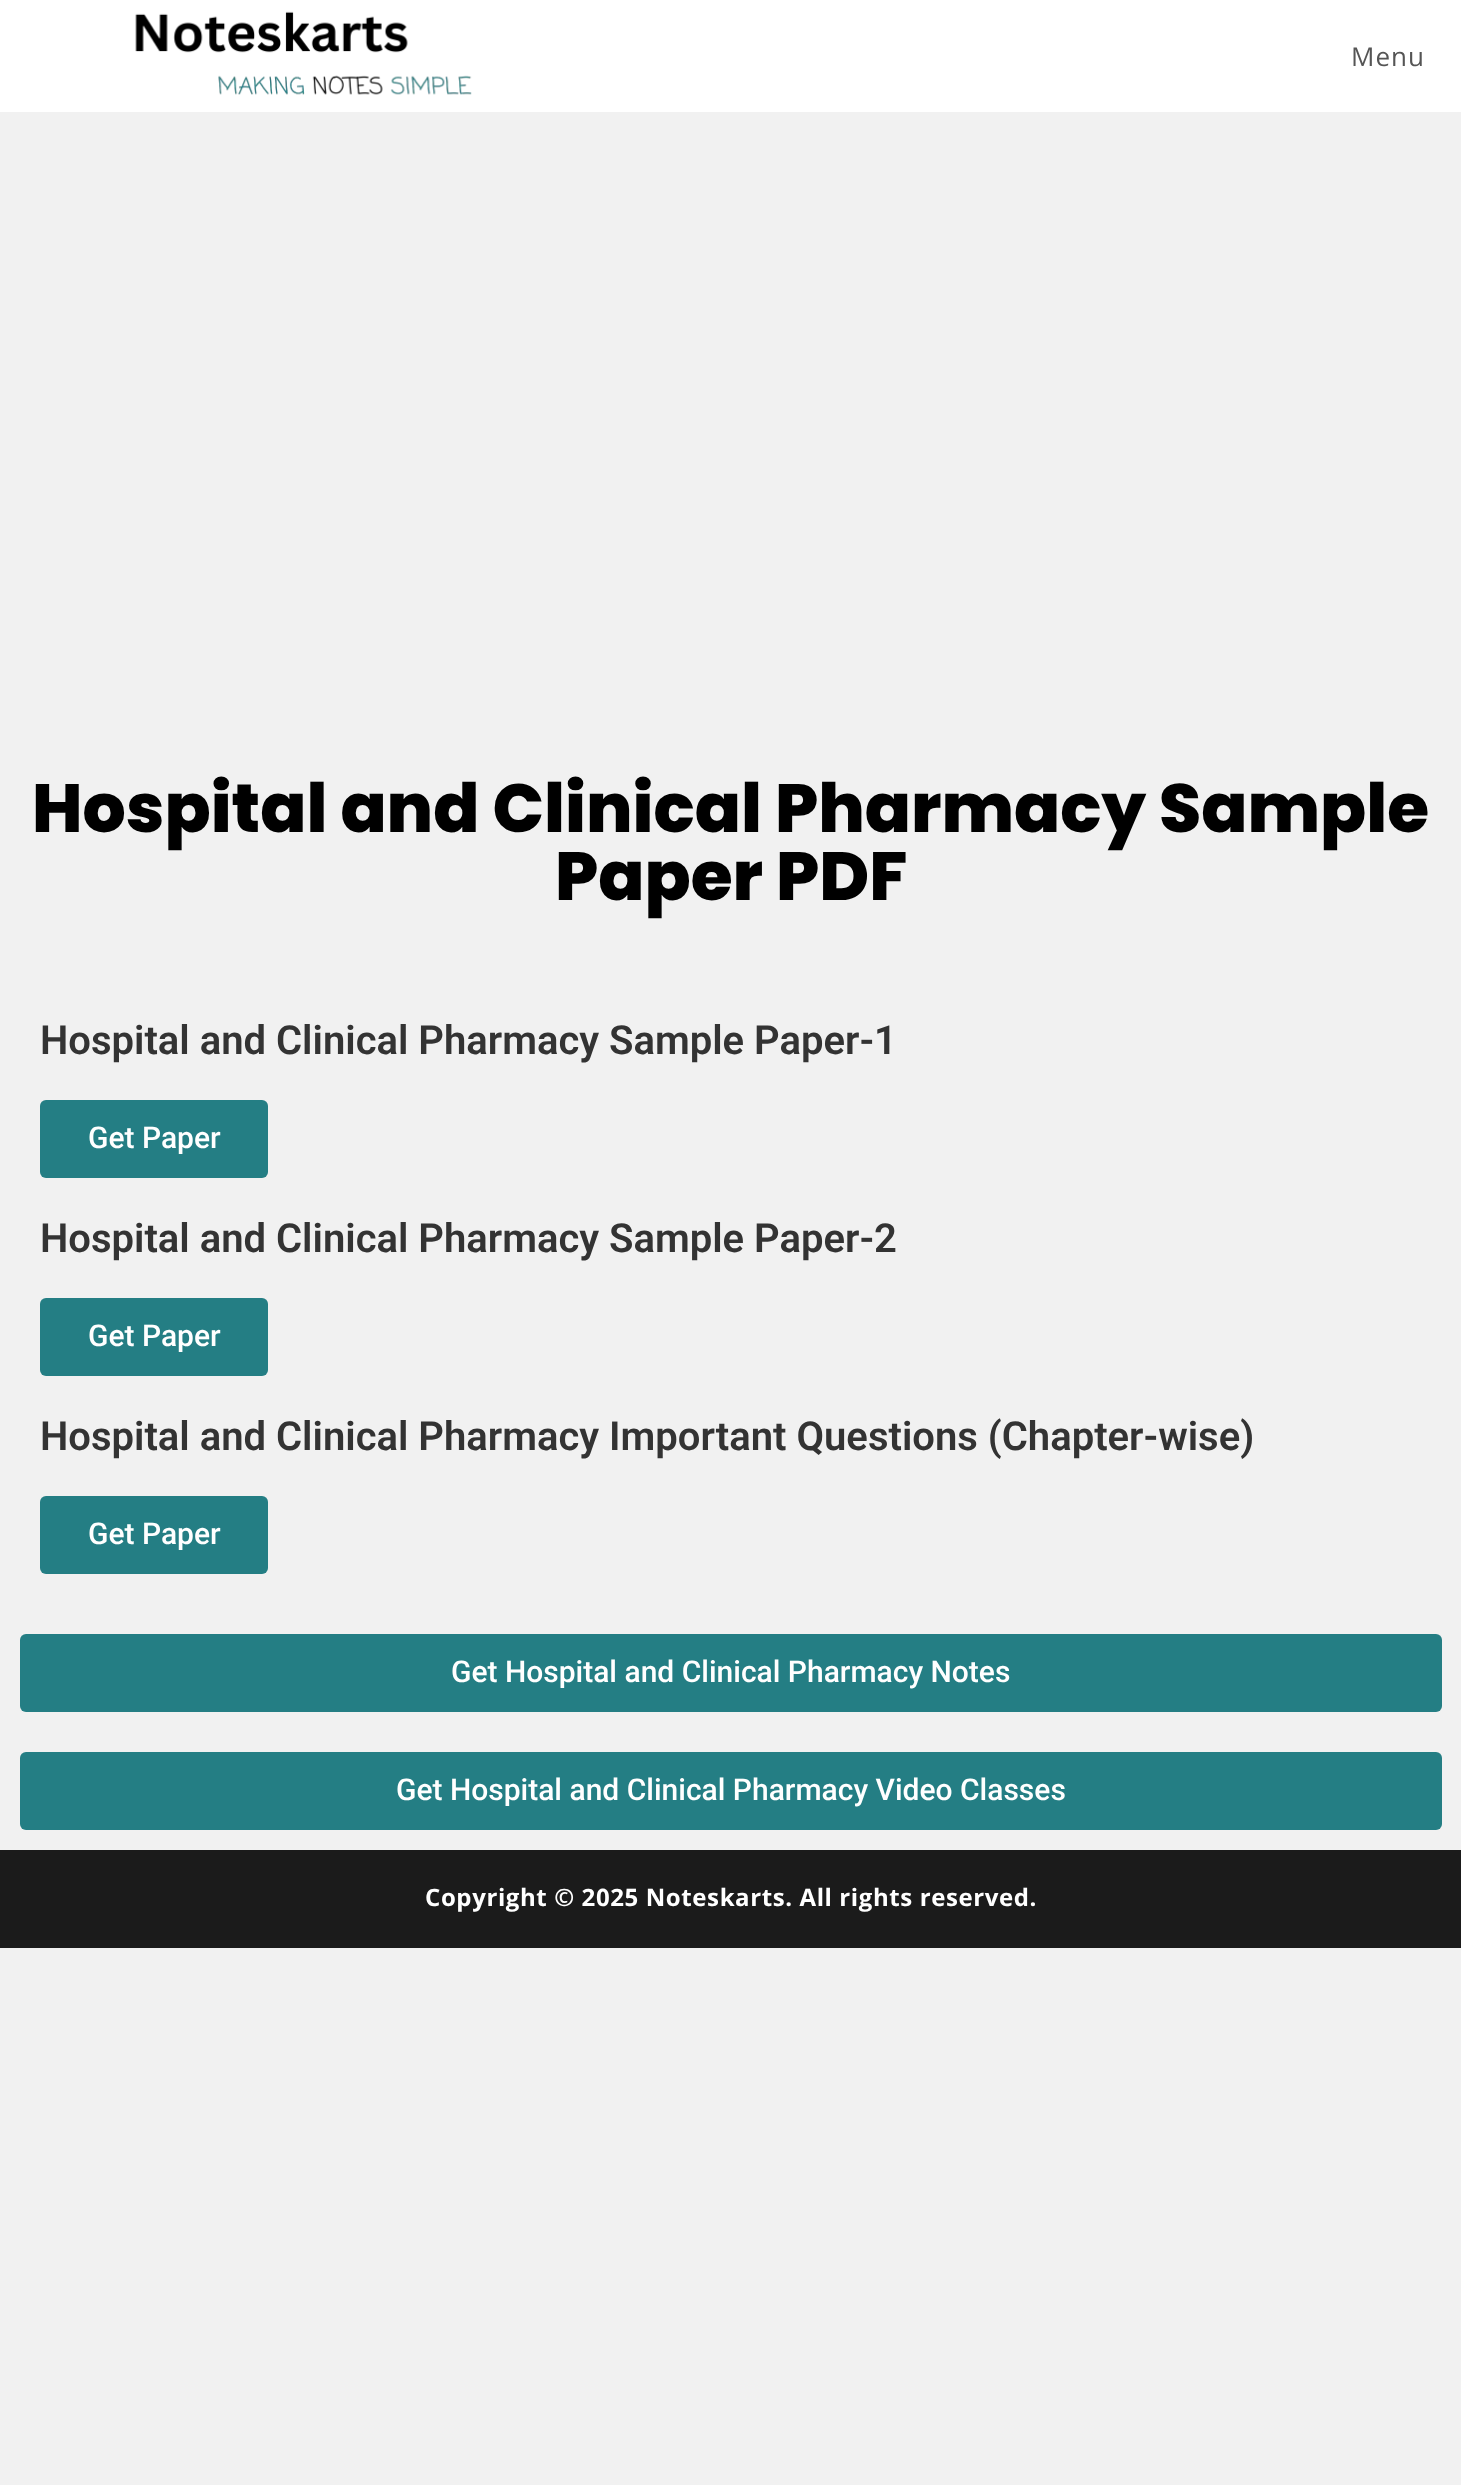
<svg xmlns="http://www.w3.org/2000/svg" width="1461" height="2485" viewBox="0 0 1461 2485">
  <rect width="100%" height="100%" fill="#f1f1f1"/>
  <rect x="0" y="0" width="1461" height="112" fill="#ffffff"/>
  <image x="135" y="11" width="337" height="84" href="img1.png"/>
  <text x="1351" y="66" font-family="Open Sans" font-size="26" letter-spacing="1" fill="#555555">Menu</text>
  <text x="32" y="832" font-family="Poppins" font-size="68" font-weight="800" fill="#000000">Hospital and Clinical Pharmacy Sample</text>
  <text x="555" y="900" font-family="Poppins" font-size="68" font-weight="800" fill="#000000">Paper PDF</text>
  <text x="40" y="1054" font-family="Roboto" font-size="40" font-weight="600" fill="#333333">Hospital and Clinical Pharmacy Sample Paper-1</text>
  <rect x="40" y="1100" width="228" height="78" rx="6" fill="#247e84"/>
  <text x="88" y="1148" font-family="Roboto" font-size="30" font-weight="500" fill="#ffffff">Get Paper</text>
  <text x="40" y="1252" font-family="Roboto" font-size="40" font-weight="600" fill="#333333">Hospital and Clinical Pharmacy Sample Paper-2</text>
  <rect x="40" y="1298" width="228" height="78" rx="6" fill="#247e84"/>
  <text x="88" y="1346" font-family="Roboto" font-size="30" font-weight="500" fill="#ffffff">Get Paper</text>
  <text x="40" y="1450" font-family="Roboto" font-size="40" font-weight="600" fill="#333333">Hospital and Clinical Pharmacy Important Questions (Chapter-wise)</text>
  <rect x="40" y="1496" width="228" height="78" rx="6" fill="#247e84"/>
  <text x="88" y="1544" font-family="Roboto" font-size="30" font-weight="500" fill="#ffffff">Get Paper</text>
  <rect x="20" y="1634" width="1422" height="78" rx="6" fill="#247e84"/>
  <text x="451" y="1682" font-family="Roboto" font-size="30" font-weight="500" fill="#ffffff">Get Hospital and Clinical Pharmacy Notes</text>
  <rect x="20" y="1752" width="1422" height="78" rx="6" fill="#247e84"/>
  <text x="396" y="1800" font-family="Roboto" font-size="30" font-weight="500" fill="#ffffff">Get Hospital and Clinical Pharmacy Video Classes</text>
  <rect x="0" y="1850" width="1461" height="98" fill="#1b1b1b"/>
  <text x="425" y="1906" font-family="Open Sans" font-size="24" font-weight="bold" letter-spacing="0.6" fill="#ffffff">Copyright © 2025 Noteskarts. All rights reserved.</text>
</svg>
